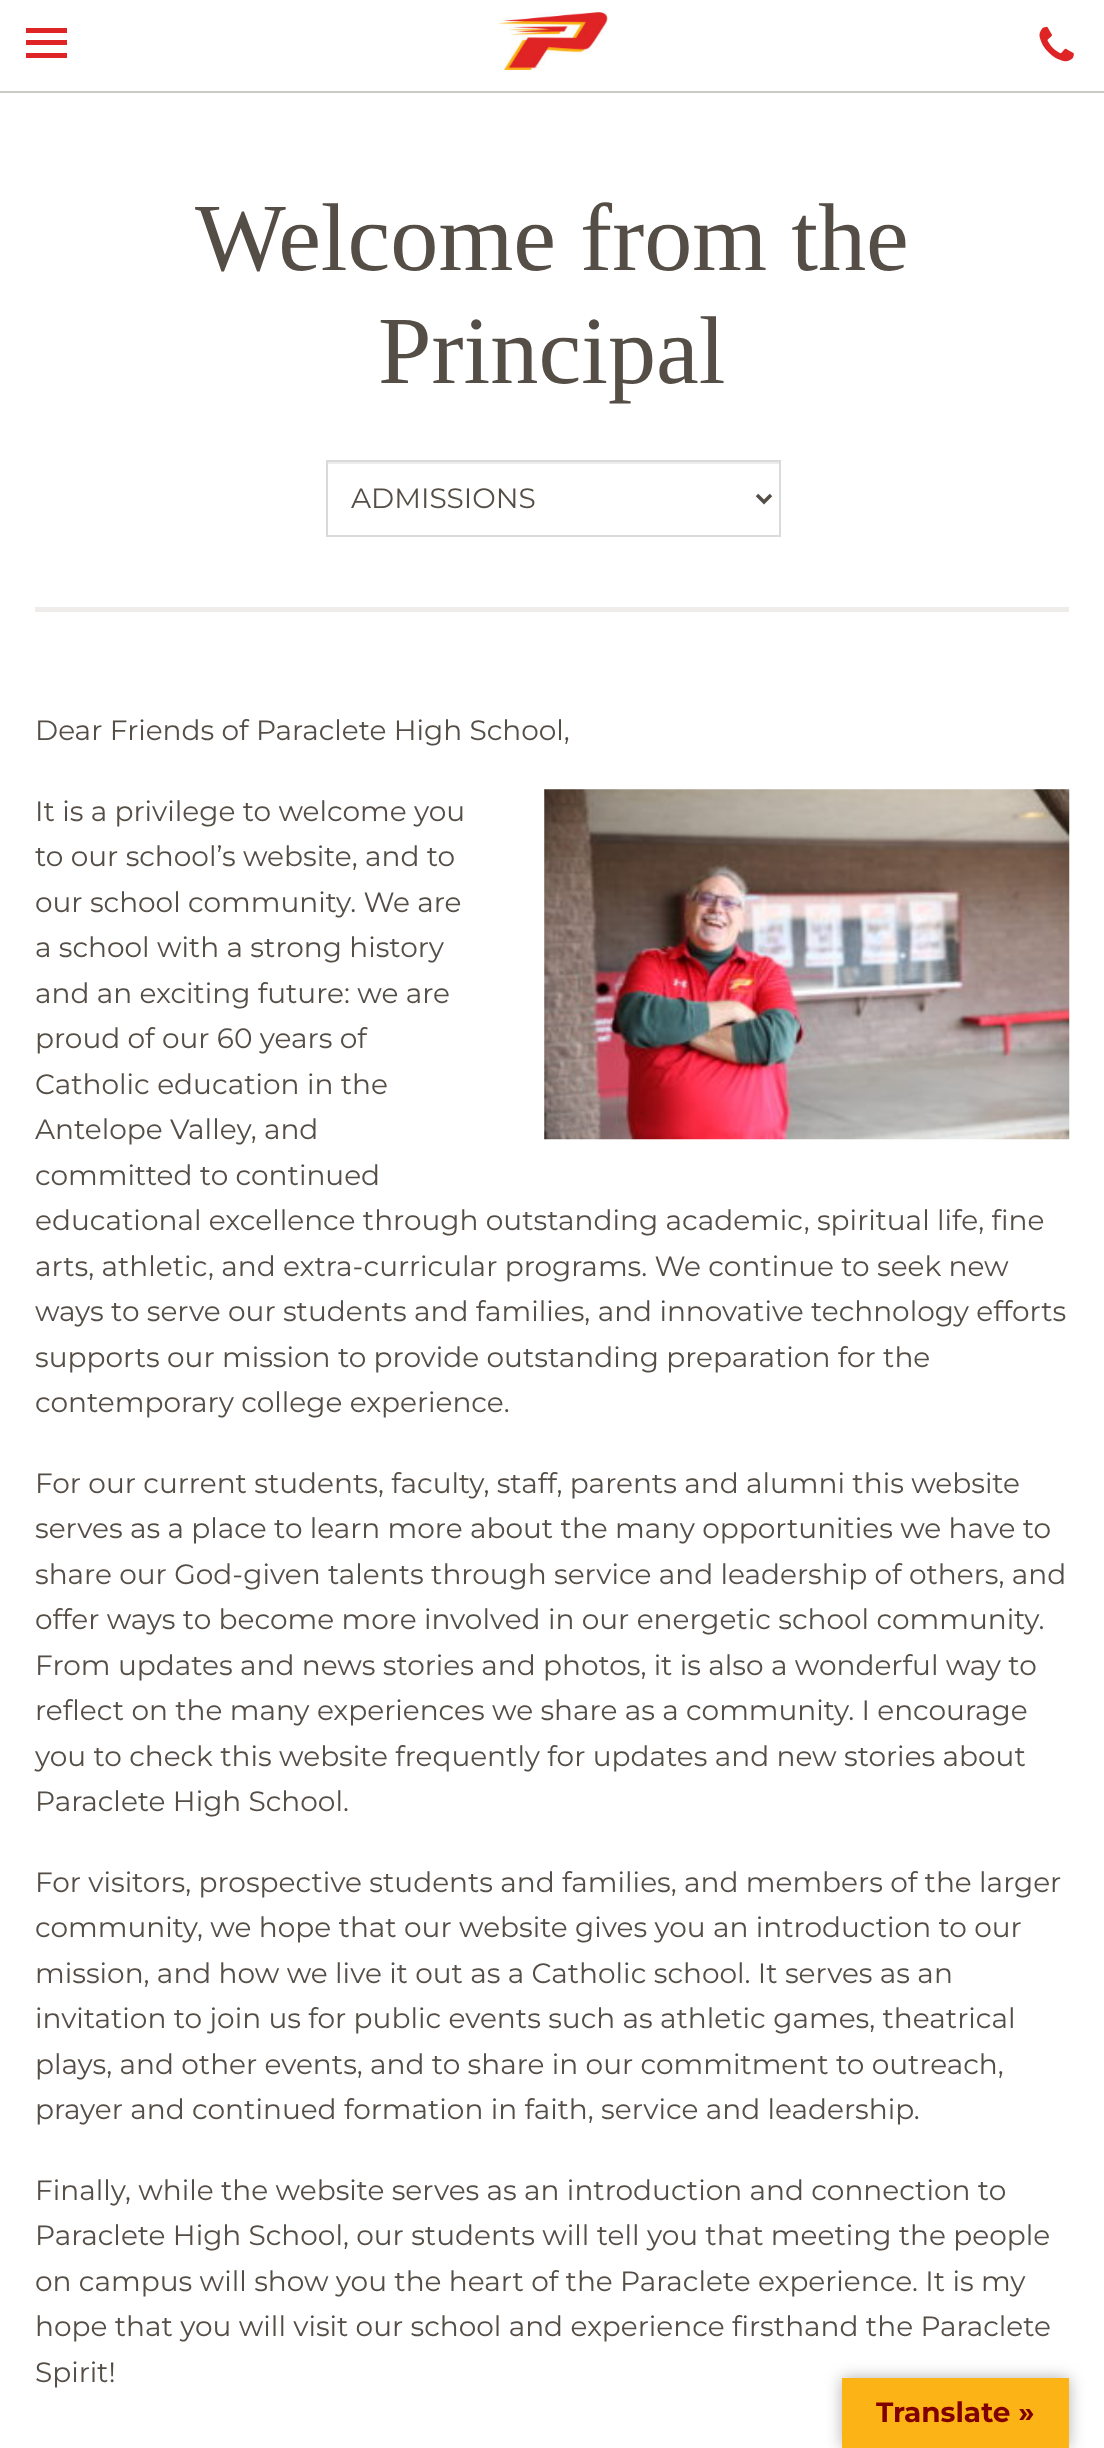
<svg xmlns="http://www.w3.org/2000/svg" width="1104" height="2448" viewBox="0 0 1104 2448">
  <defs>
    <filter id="blur1" x="-50%" y="-200%" width="200%" height="500%"><feGaussianBlur stdDeviation="8"/></filter>
  </defs>
  <rect width="100%" height="100%" fill="#ffffff"/>
  <rect x="0" y="91" width="1104" height="2" fill="#cccac7"/>
  <rect x="26" y="40" width="41" height="5" fill="#df2426"/>
  <rect x="26" y="28" width="41" height="5" fill="#df2426"/>
  <rect x="26" y="53" width="41" height="5" fill="#df2426"/>
  <image x="498" y="12" width="110" height="58" href="img1.png"/>
  <image x="1039" y="26" width="35" height="36" href="img2.png"/>
  <text x="195" y="270" font-family="Liberation Serif" font-size="96.25" fill="#554e47">Welcome from the</text>
  <text x="378" y="383" font-family="Liberation Serif" font-size="96.25" fill="#554e47">Principal</text>
  <rect x="327" y="462" width="452" height="2" fill="#ececec"/>
  <rect x="327" y="461" width="453" height="75" fill="none" stroke="#dadada" stroke-width="2"/>
  <path d="M757 495L764 502L771 495" fill="none" stroke="#554e47" stroke-width="3.5"/>
  <text x="351" y="508" font-family="Montserrat" font-size="28" fill="#554e47">ADMISSIONS</text>
  <rect x="35" y="607" width="1034" height="5" fill="#eeedec"/>
  <text x="35" y="740" font-family="Montserrat" font-size="28" fill="#554e47">Dear Friends of Paraclete High School,</text>
  <image x="544" y="789" width="526" height="351" href="img3.png"/>
  <text x="35" y="821" font-family="Montserrat" font-size="28" fill="#554e47">It is a privilege to welcome you</text>
  <text x="35" y="866" font-family="Montserrat" font-size="28" fill="#554e47">to our school’s website, and to</text>
  <text x="35" y="912" font-family="Montserrat" font-size="28" fill="#554e47">our school community. We are</text>
  <text x="35" y="957" font-family="Montserrat" font-size="28" fill="#554e47">a school with a strong history</text>
  <text x="35" y="1003" font-family="Montserrat" font-size="28" fill="#554e47">and an exciting future: we are</text>
  <text x="35" y="1048" font-family="Montserrat" font-size="28" fill="#554e47">proud of our 60 years of</text>
  <text x="35" y="1094" font-family="Montserrat" font-size="28" fill="#554e47">Catholic education in the</text>
  <text x="35" y="1139" font-family="Montserrat" font-size="28" fill="#554e47">Antelope Valley, and</text>
  <text x="35" y="1185" font-family="Montserrat" font-size="28" fill="#554e47">committed to continued</text>
  <text x="35" y="1230" font-family="Montserrat" font-size="28" fill="#554e47">educational excellence through outstanding academic, spiritual life, fine</text>
  <text x="35" y="1276" font-family="Montserrat" font-size="28" fill="#554e47">arts, athletic, and extra-curricular programs. We continue to seek new</text>
  <text x="35" y="1321" font-family="Montserrat" font-size="28" fill="#554e47">ways to serve our students and families, and innovative technology efforts</text>
  <text x="35" y="1367" font-family="Montserrat" font-size="28" fill="#554e47">supports our mission to provide outstanding preparation for the</text>
  <text x="35" y="1412" font-family="Montserrat" font-size="28" fill="#554e47">contemporary college experience.</text>
  <text x="35" y="1493" font-family="Montserrat" font-size="28" fill="#554e47">For our current students, faculty, staff, parents and alumni this website</text>
  <text x="35" y="1538" font-family="Montserrat" font-size="28" fill="#554e47">serves as a place to learn more about the many opportunities we have to</text>
  <text x="35" y="1584" font-family="Montserrat" font-size="28" fill="#554e47">share our God-given talents through service and leadership of others, and</text>
  <text x="35" y="1629" font-family="Montserrat" font-size="28" fill="#554e47">offer ways to become more involved in our energetic school community.</text>
  <text x="35" y="1675" font-family="Montserrat" font-size="28" fill="#554e47">From updates and news stories and photos, it is also a wonderful way to</text>
  <text x="35" y="1720" font-family="Montserrat" font-size="28" fill="#554e47">reflect on the many experiences we share as a community. I encourage</text>
  <text x="35" y="1766" font-family="Montserrat" font-size="28" fill="#554e47">you to check this website frequently for updates and new stories about</text>
  <text x="35" y="1811" font-family="Montserrat" font-size="28" fill="#554e47">Paraclete High School.</text>
  <text x="35" y="1892" font-family="Montserrat" font-size="28" fill="#554e47">For visitors, prospective students and families, and members of the larger</text>
  <text x="35" y="1937" font-family="Montserrat" font-size="28" fill="#554e47">community, we hope that our website gives you an introduction to our</text>
  <text x="35" y="1983" font-family="Montserrat" font-size="28" fill="#554e47">mission, and how we live it out as a Catholic school. It serves as an</text>
  <text x="35" y="2028" font-family="Montserrat" font-size="28" fill="#554e47">invitation to join us for public events such as athletic games, theatrical</text>
  <text x="35" y="2074" font-family="Montserrat" font-size="28" fill="#554e47">plays, and other events, and to share in our commitment to outreach,</text>
  <text x="35" y="2119" font-family="Montserrat" font-size="28" fill="#554e47">prayer and continued formation in faith, service and leadership.</text>
  <text x="35" y="2200" font-family="Montserrat" font-size="28" fill="#554e47">Finally, while the website serves as an introduction and connection to</text>
  <text x="35" y="2245" font-family="Montserrat" font-size="28" fill="#554e47">Paraclete High School, our students will tell you that meeting the people</text>
  <text x="35" y="2291" font-family="Montserrat" font-size="28" fill="#554e47">on campus will show you the heart of the Paraclete experience. It is my</text>
  <text x="35" y="2336" font-family="Montserrat" font-size="28" fill="#554e47">hope that you will visit our school and experience firsthand the Paraclete</text>
  <text x="35" y="2382" font-family="Montserrat" font-size="28" fill="#554e47">Spirit!</text>
  <rect x="842" y="2378" width="227" height="70" fill="#000000" fill-opacity="0.3" filter="url(#blur1)"/>
  <rect x="842" y="2378" width="227" height="70" fill="#fcb315"/>
  <text x="876" y="2422" font-family="Montserrat" font-size="28" font-weight="bold" fill="#800000">Translate »</text>
</svg>
